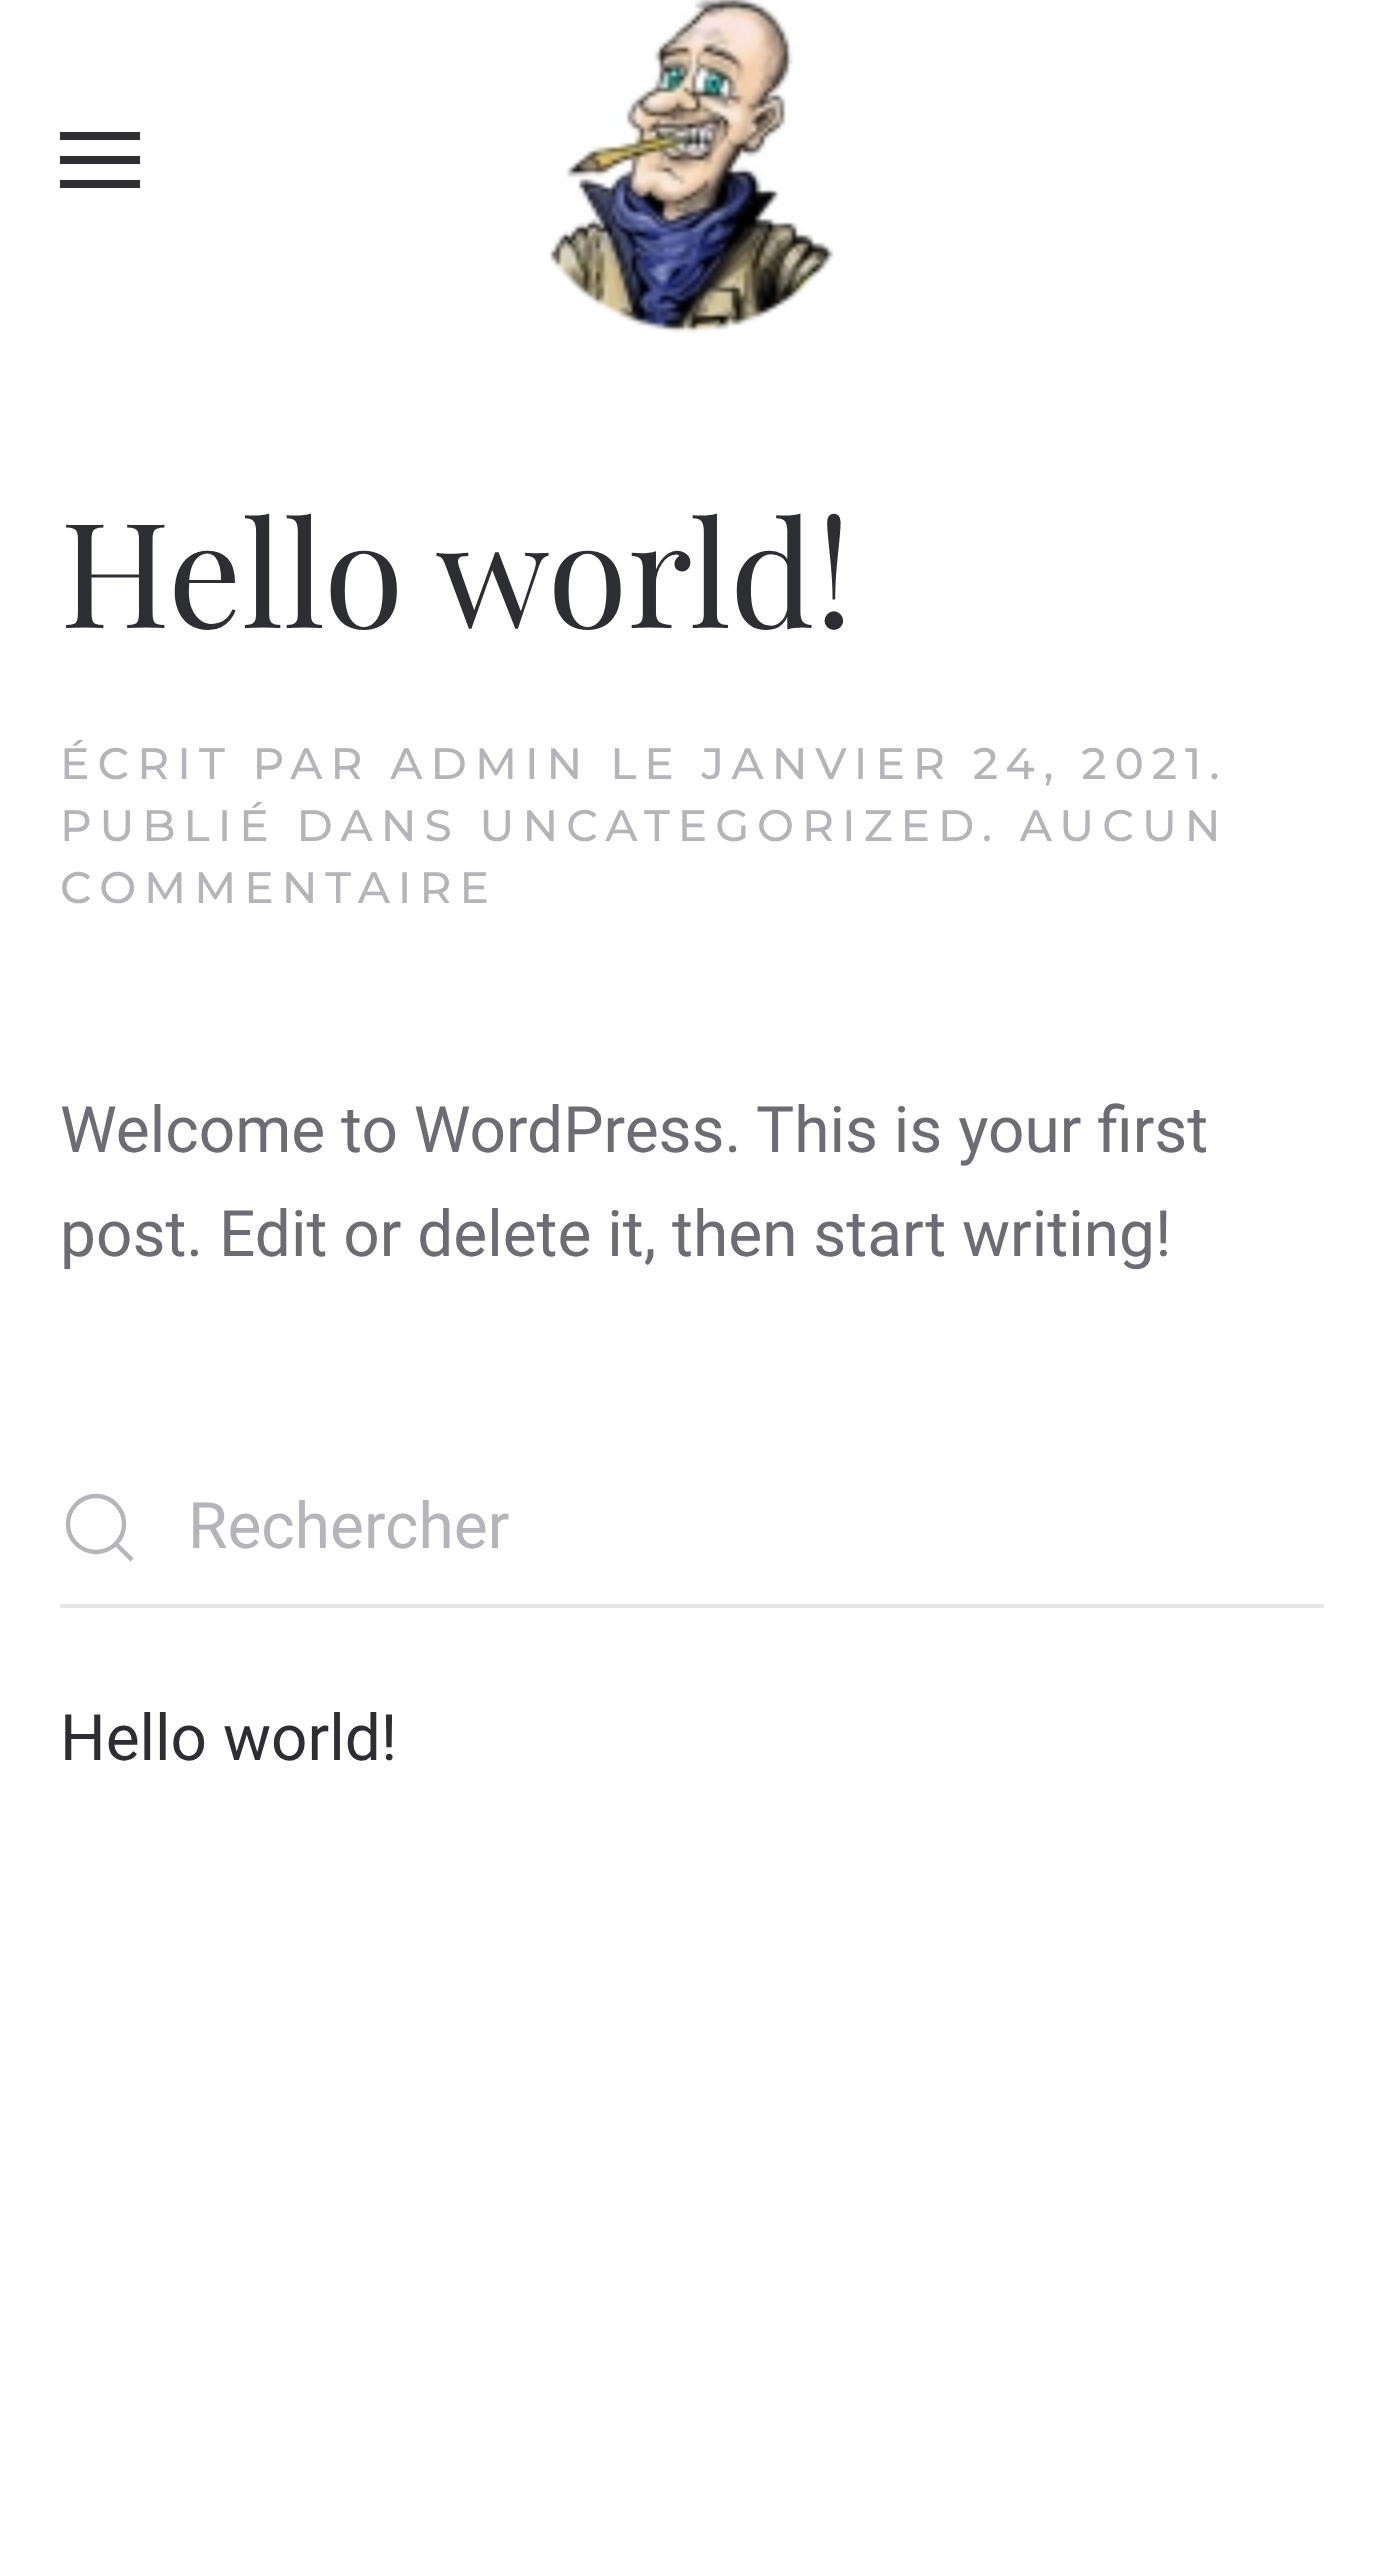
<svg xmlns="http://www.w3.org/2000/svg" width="1383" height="2567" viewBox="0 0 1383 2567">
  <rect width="100%" height="100%" fill="#ffffff"/>
  <rect x="60" y="132" width="80" height="8" fill="#2d2e33"/>
  <rect x="60" y="156" width="80" height="8" fill="#2d2e33"/>
  <rect x="60" y="180" width="80" height="8" fill="#2d2e33"/>
  <image x="548" y="0" width="286" height="333" href="img1.png"/>
  <text x="60" y="628" font-family="Playfair Display" font-size="146" fill="#2d2e33">Hello world!</text>
  <text x="60" y="779" font-family="Montserrat" font-size="44" font-weight="100" letter-spacing="8" fill="#b4b5ba">ÉCRIT PAR ADMIN LE JANVIER 24, 2021.</text>
  <text x="60" y="841" font-family="Montserrat" font-size="44" font-weight="100" letter-spacing="8" fill="#b4b5ba">PUBLIÉ DANS UNCATEGORIZED</text>
  <text x="982" y="841" font-family="Montserrat" font-size="44" font-weight="100" letter-spacing="8" fill="#b4b5ba">. AUCUN</text>
  <text x="60" y="903" font-family="Montserrat" font-size="44" font-weight="100" letter-spacing="8" fill="#b4b5ba">COMMENTAIRE</text>
  <text x="60" y="1152" font-family="Roboto" font-size="64" fill="#6c6d74">Welcome to WordPress. This is your first</text>
  <text x="60" y="1256" font-family="Roboto" font-size="64" fill="#6c6d74">post. Edit or delete it, then start writing!</text>
  <circle cx="96" cy="1524" r="28" fill="none" stroke="#b4b5ba" stroke-width="4.4"/>
  <path d="M116 1544L132 1560Z" fill="none" stroke="#b4b5ba" stroke-width="4.4"/>
  <rect x="60" y="1604" width="1264" height="4" fill="#e5e5e7"/>
  <text x="188" y="1548" font-family="Roboto" font-size="64" fill="#b4b5ba">Rechercher</text>
  <text x="60" y="1760" font-family="Roboto" font-size="64" fill="#2d2e33">Hello world!</text>
</svg>
